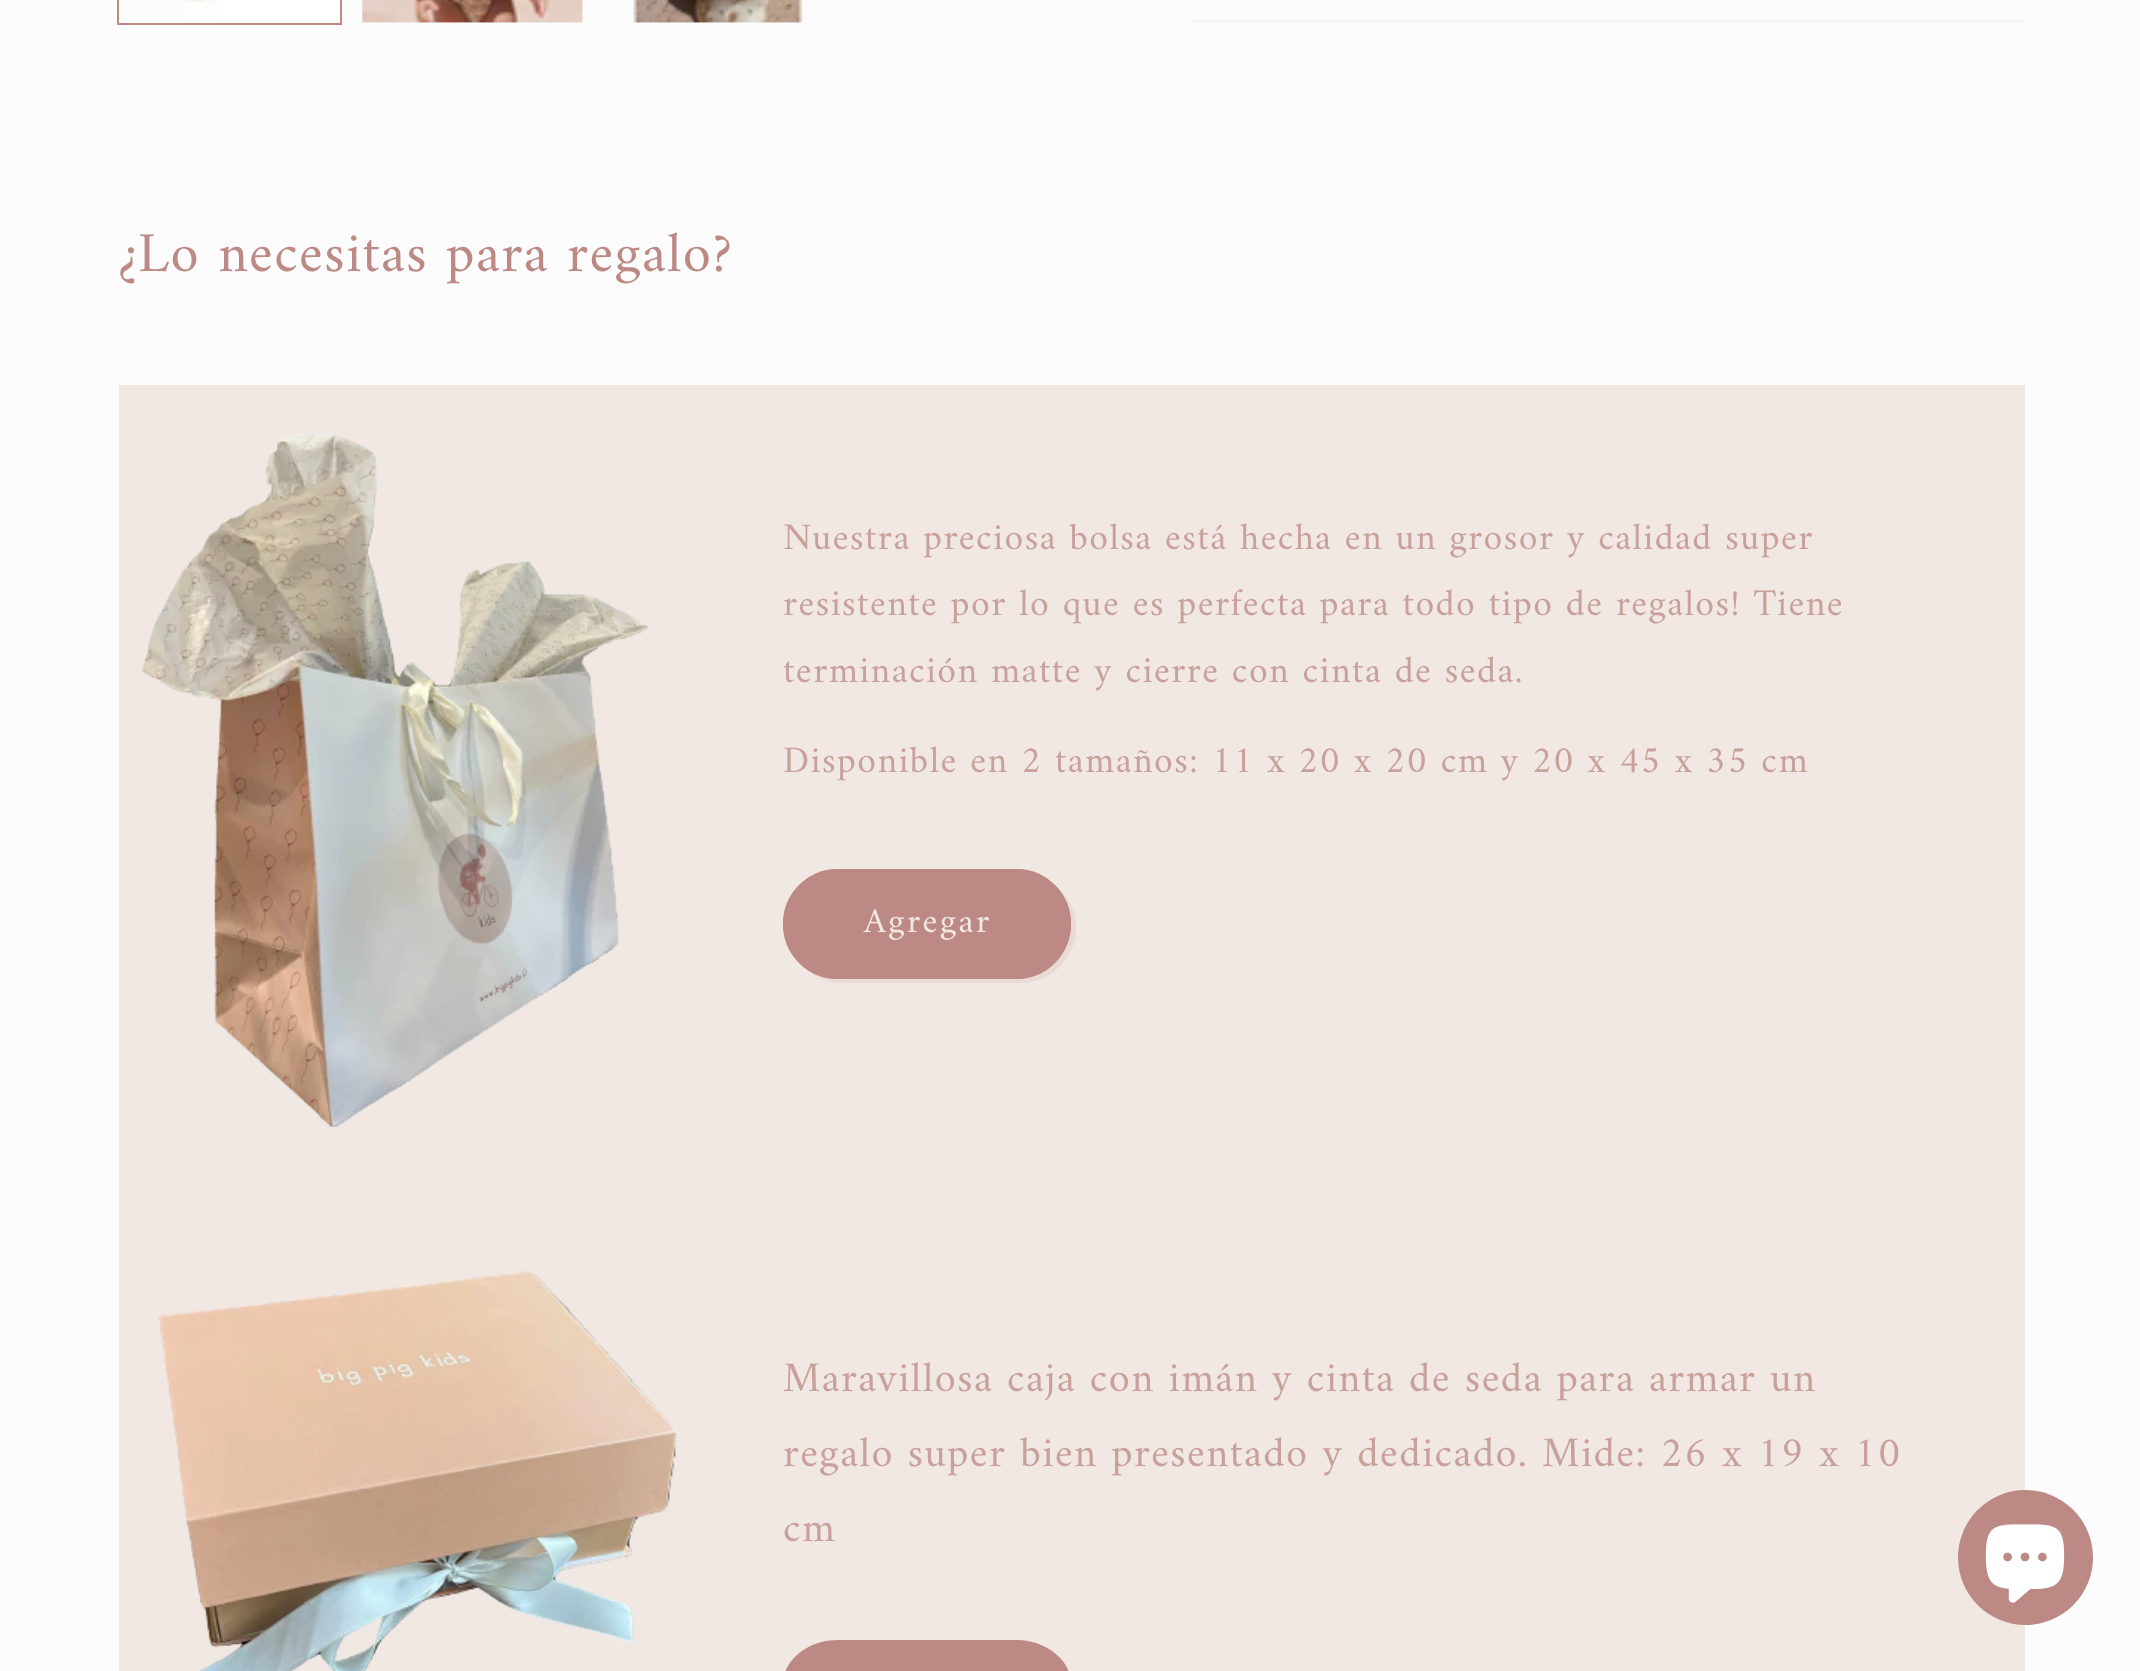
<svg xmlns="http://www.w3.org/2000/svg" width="2140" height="1671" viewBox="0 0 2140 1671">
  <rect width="100%" height="100%" fill="#fcfcfc"/>
  <rect x="118" y="-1" width="223" height="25" fill="none" stroke="#bc8984" stroke-width="2"/>
  <image x="182" y="0" width="159" height="22" href="img1.png"/>
  <image x="362" y="0" width="221" height="23" href="img2.png"/>
  <image x="633" y="0" width="171" height="23" href="img3.png"/>
  <rect x="1190" y="20" width="835" height="2" fill="#f7f3f2"/>
  <text x="118" y="271" font-family="Amiri" font-size="56.75" letter-spacing="1.42" fill="#bc8984">¿Lo necesitas para regalo?</text>
  <rect x="119" y="385" width="1906" height="742" fill="#f1e8e3"/>
  <image x="142" y="434" width="507" height="693" href="img4.png"/>
  <text x="783" y="549" font-family="Amiri" font-size="37.8" letter-spacing="1.42" fill="#c9a19c">Nuestra preciosa bolsa está hecha en un grosor y calidad super</text>
  <text x="783" y="615" font-family="Amiri" font-size="37.8" letter-spacing="1.42" fill="#c9a19c">resistente por lo que es perfecta para todo tipo de regalos! Tiene</text>
  <text x="783" y="682" font-family="Amiri" font-size="37.8" letter-spacing="1.42" fill="#c9a19c">terminación matte y cierre con cinta de seda.</text>
  <text x="783" y="772" font-family="Amiri" font-size="37.8" letter-spacing="1.42" fill="#c9a19c">Disponible en 2 tamaños: 11 x 20 x 20 cm y 20 x 45 x 35 cm</text>
  <path d="M805 967C815 977 828 983 843 983H1021C1051 983 1076 958 1076 928C1076 910 1068 895 1055 885C1065 895 1071 908 1071 924C1071 954 1046 979 1016 979H838C826 979 814 975 805 967Z" fill="#e9dad5"/>
  <rect x="783" y="869" width="288" height="110" rx="55" fill="#bc8984"/>
  <rect x="784" y="870" width="286" height="108" rx="54" fill="none" stroke="#bc8984" stroke-width="2"/>
  <text x="864" y="932" font-family="Amiri" font-size="35.5" letter-spacing="2.5" fill="#f1e8e3">Agregar</text>
  <rect x="119" y="1127" width="1906" height="544" fill="#f1e8e3"/>
  <image x="158" y="1271" width="519" height="400" href="img5.png"/>
  <text x="783" y="1391" font-family="Amiri" font-size="42.5" letter-spacing="1.42" fill="#c9a19c">Maravillosa caja con imán y cinta de seda para armar un</text>
  <text x="783" y="1466" font-family="Amiri" font-size="42.5" letter-spacing="1.42" fill="#c9a19c">regalo super bien presentado y dedicado. Mide: 26 x 19 x 10</text>
  <text x="783" y="1541" font-family="Amiri" font-size="42.5" letter-spacing="1.42" fill="#c9a19c">cm</text>
  <path d="M803 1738C813 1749 827 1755 843 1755H1021C1051 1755 1076 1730 1076 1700C1076 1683 1068 1668 1056 1658C1065 1667 1071 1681 1071 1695C1071 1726 1046 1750 1016 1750H838C825 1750 813 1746 803 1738Z" fill="#e9dad5"/>
  <rect x="784" y="1641" width="286" height="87" rx="54.5" fill="#bc8984" stroke="#bc8984" stroke-width="2"/>
  <circle cx="2025.5" cy="1557.5" r="67.5" fill="#bc8984"/>
  <image x="1985" y="1524" width="80" height="79" href="img6.png"/>
</svg>
